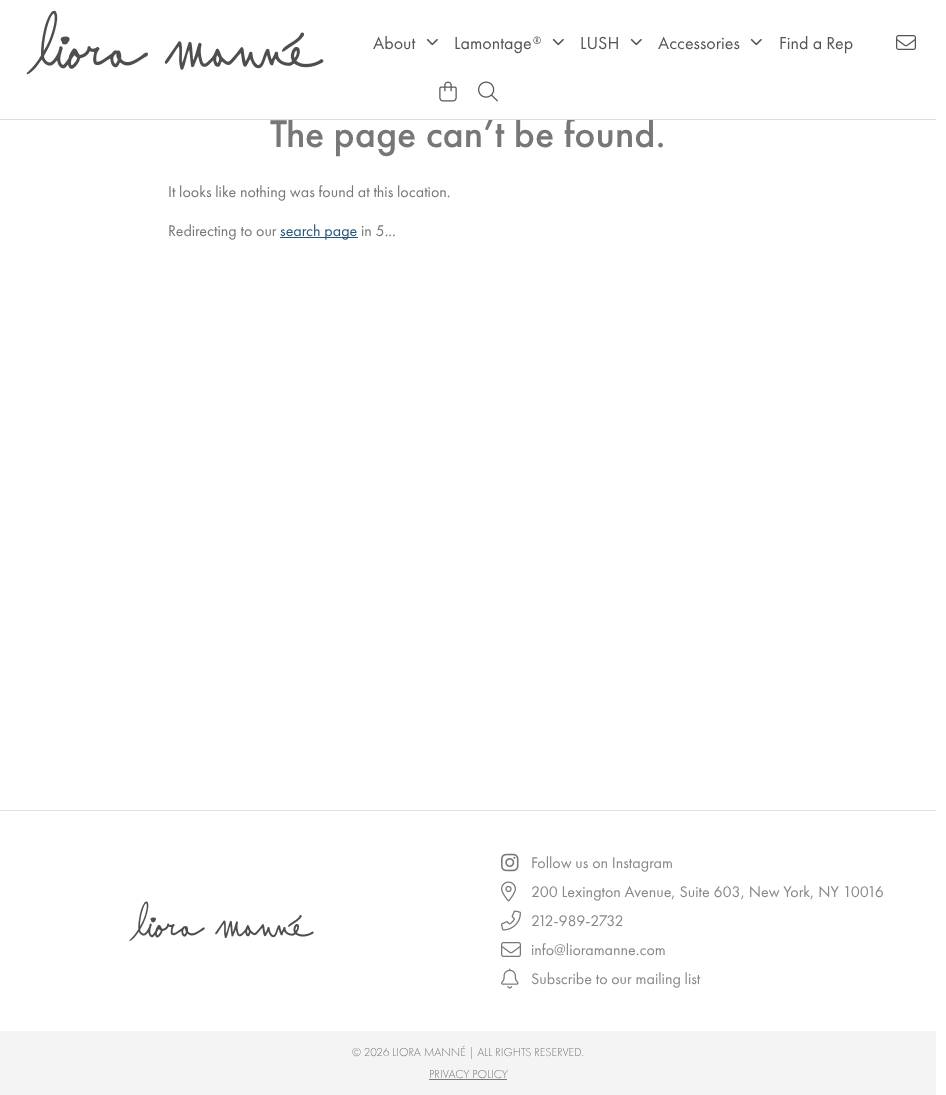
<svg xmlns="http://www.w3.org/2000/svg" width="946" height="1095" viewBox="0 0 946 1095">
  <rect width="100%" height="100%" fill="#ffffff"/>
  <text x="270" y="147" font-family="Futura PT" font-size="40" font-weight="500" fill="#777777">The page can’t be found.</text>
  <rect x="288" y="117" width="366" height="2" fill="#ffffff"/>
  <rect x="0" y="119" width="936" height="1" fill="#dedede"/>
  <image x="26" y="10" width="298" height="65" href="img1.png"/>
  <text x="373" y="49" font-family="Futura PT" font-size="18" fill="#555555">About</text>
  <image x="426" y="39" width="12" height="7" href="img2.png"/>
  <text x="454" y="49" font-family="Futura PT" font-size="18" fill="#555555">Lamontage</text>
  <text x="533" y="44" font-family="Futura PT" font-size="11" fill="#555555">®</text>
  <image x="552" y="39" width="12" height="7" href="img2.png"/>
  <text x="580" y="49" font-family="Futura PT" font-size="18" fill="#555555">LUSH</text>
  <image x="630" y="39" width="12" height="7" href="img2.png"/>
  <text x="658" y="49" font-family="Futura PT" font-size="18" fill="#555555">Accessories</text>
  <image x="750" y="39" width="12" height="7" href="img2.png"/>
  <text x="779" y="49" font-family="Futura PT" font-size="18" fill="#555555">Find a Rep</text>
  <image x="896" y="35" width="20" height="15" href="img3.png"/>
  <image x="439" y="81" width="18" height="21" href="img4.png"/>
  <image x="478" y="81" width="20" height="21" href="img5.png"/>
  <text x="168" y="197" font-family="Futura PT" font-size="16" fill="#777777">It looks like nothing was found at this location.</text>
  <text x="168" y="236" font-family="Futura PT" font-size="16" fill="#777777">Redirecting to our</text>
  <rect x="280" y="237" width="78" height="1" fill="#255677"/>
  <text x="280" y="236" font-family="Futura PT" font-size="16" fill="#255677">search page</text>
  <text x="361" y="236" font-family="Futura PT" font-size="16" fill="#777777">in 5...</text>
  <rect x="0" y="810" width="936" height="1" fill="#e0e0e0"/>
  <image x="129" y="901" width="185" height="40" href="img6.png"/>
  <image x="501" y="853" width="18" height="19" href="img7.png"/>
  <text x="531" y="868" font-family="Futura PT" font-size="16" fill="#888888">Follow us on Instagram</text>
  <image x="501" y="881" width="15" height="21" href="img8.png"/>
  <text x="531" y="897" font-family="Futura PT" font-size="16" fill="#888888">200 Lexington Avenue, Suite 603, New York, NY 10016</text>
  <image x="501" y="910" width="20" height="21" href="img9.png"/>
  <text x="531" y="926" font-family="Futura PT" font-size="16" fill="#888888">212-989-2732</text>
  <image x="501" y="942" width="20" height="15" href="img10.png"/>
  <text x="531" y="955" font-family="Futura PT" font-size="16" fill="#888888">info@lioramanne.com</text>
  <image x="501" y="968" width="18" height="21" href="img11.png"/>
  <text x="531" y="984" font-family="Futura PT" font-size="16" fill="#888888">Subscribe to our mailing list</text>
  <rect x="0" y="1031" width="936" height="64" fill="#f4f4f4"/>
  <text x="352" y="1056" font-family="Futura PT" font-size="12" font-weight="300" fill="#777777">© 2026 LIORA MANNÉ | ALL RIGHTS RESERVED.</text>
  <text x="429" y="1078" font-family="Futura PT" font-size="12" font-weight="300" fill="#777777">PRIVACY POLICY</text>
  <rect x="429" y="1079" width="78" height="1" fill="#7a7a7a"/>
</svg>
